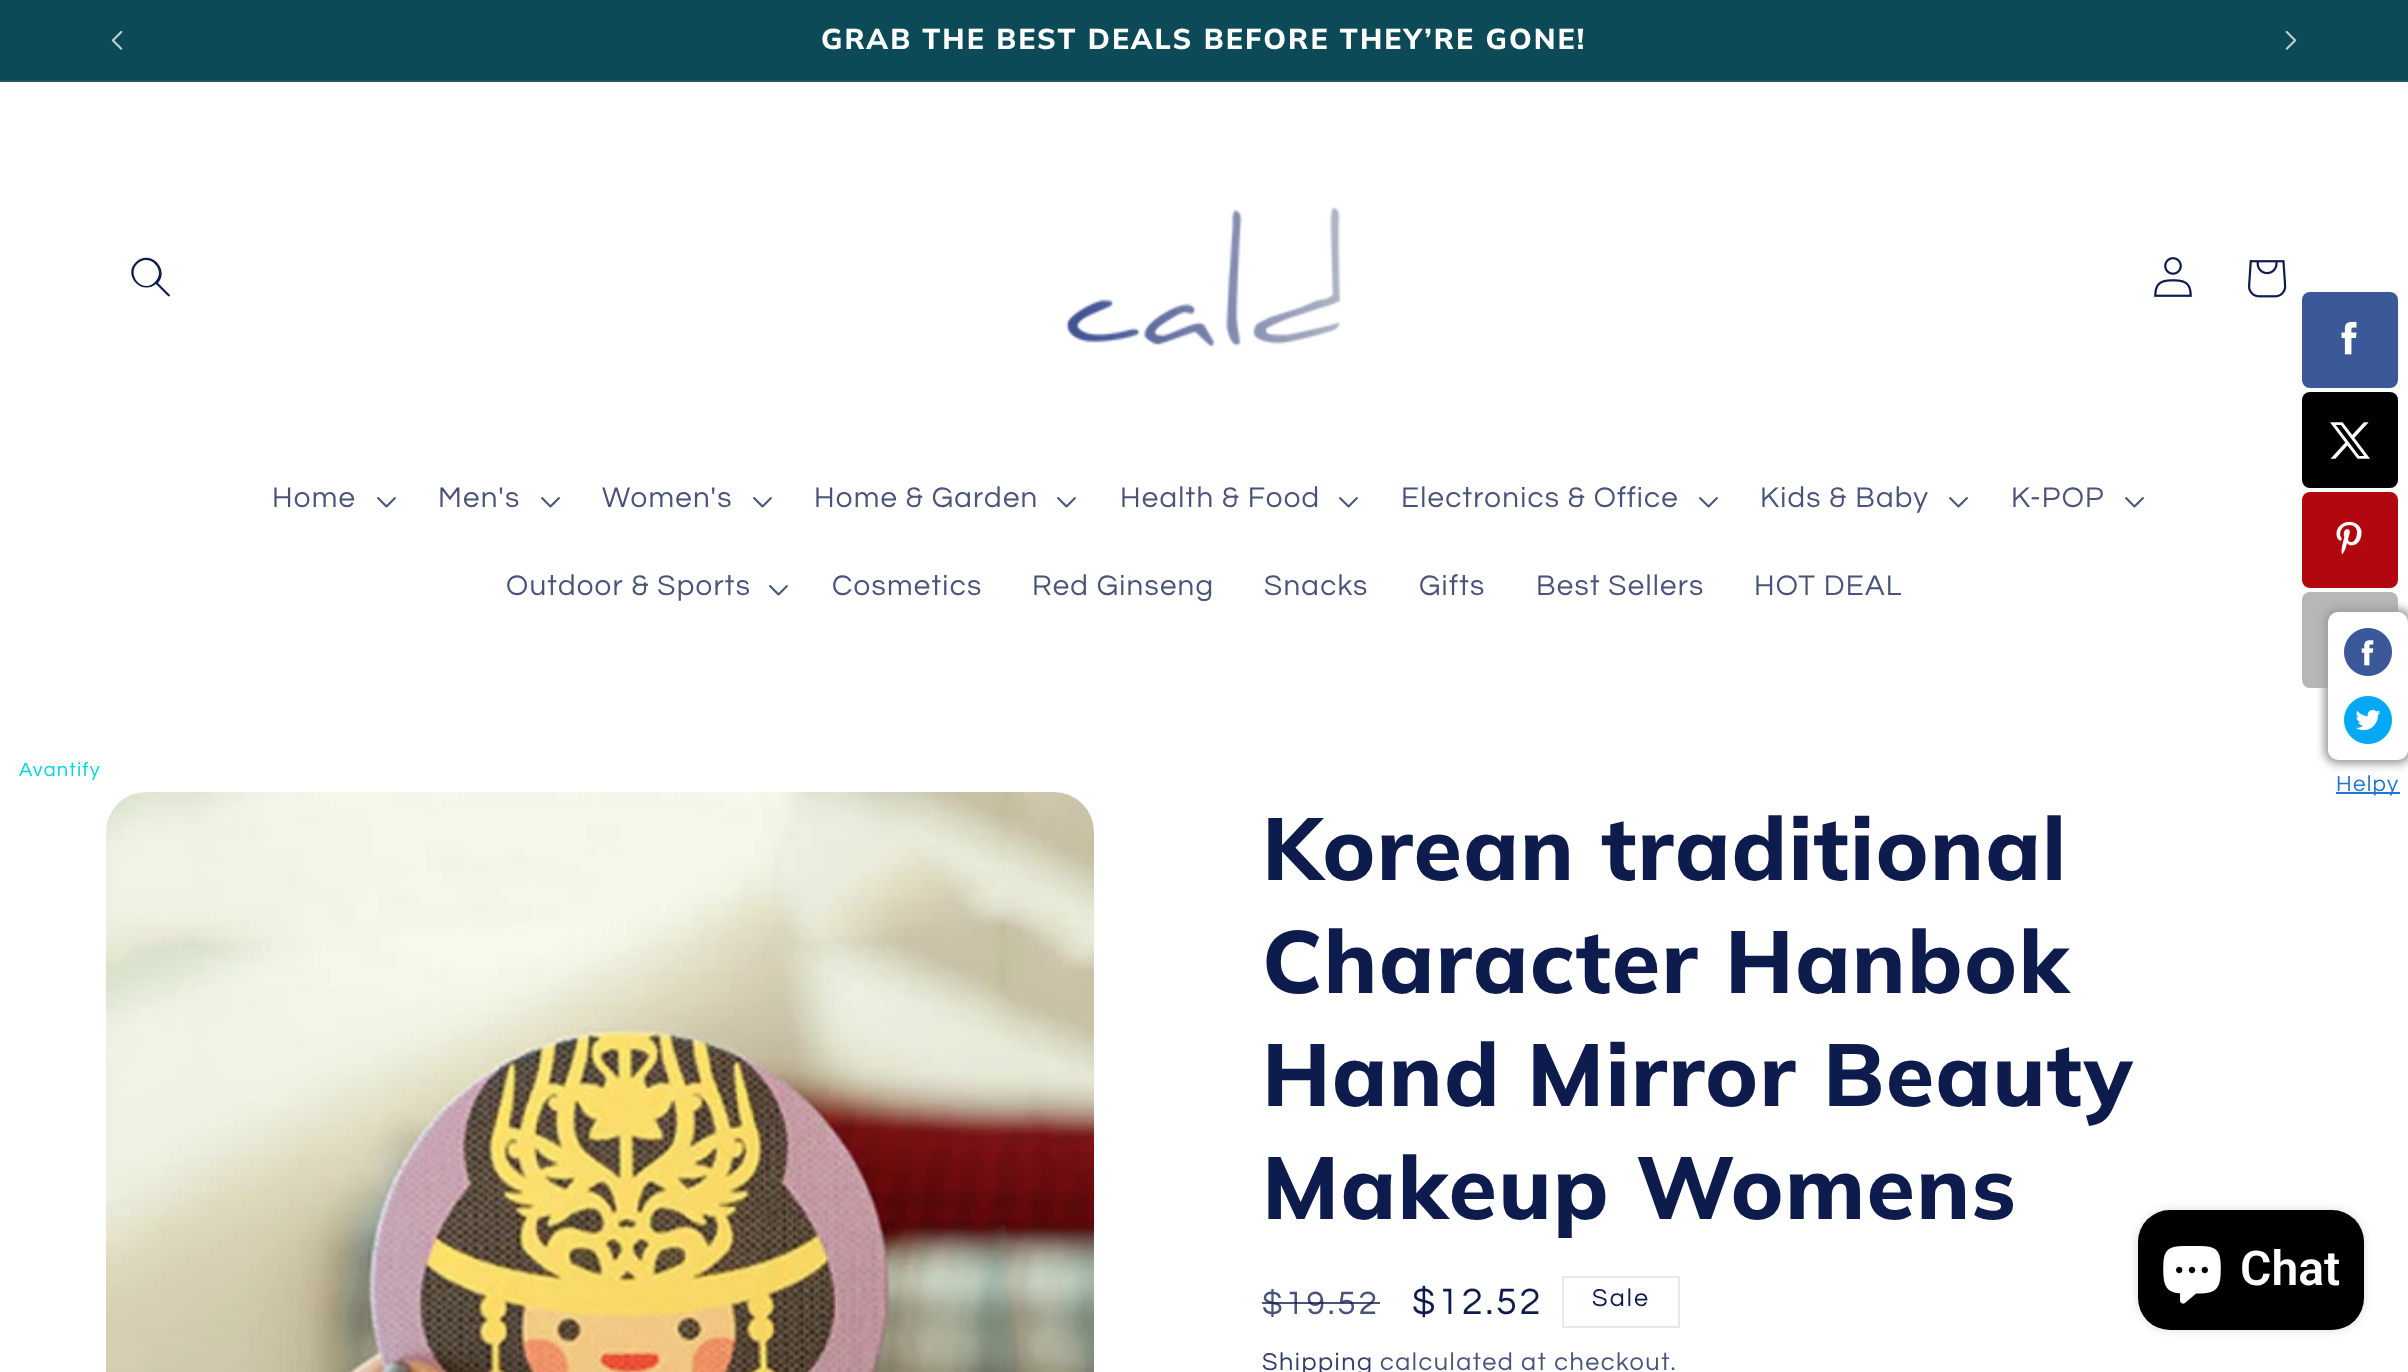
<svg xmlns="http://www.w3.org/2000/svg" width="2408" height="1372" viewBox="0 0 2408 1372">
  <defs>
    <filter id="blur1" x="-50%" y="-200%" width="200%" height="500%"><feGaussianBlur stdDeviation="4"/></filter>
    <filter id="blur2" x="-50%" y="-200%" width="200%" height="500%"><feGaussianBlur stdDeviation="5"/></filter>
  </defs>
  <rect width="100%" height="100%" fill="#ffffff"/>
  <rect x="0" y="0" width="2408" height="80" fill="#0b4a56"/>
  <rect x="0" y="80" width="2408" height="2" fill="#1f5863"/>
  <image x="111" y="30" width="12" height="20" href="img1.png"/>
  <text x="821" y="49" font-family="Muli" font-size="28.6" font-weight="800" letter-spacing="2.1" fill="#fffefd">GRAB THE BEST DEALS BEFORE THEY’RE GONE!</text>
  <image x="2285" y="30" width="12" height="20" href="img2.png"/>
  <path d="M155 282C144 294 126 276 137 264C149 252 167 270 155 282M156 284C142 296 122 275 136 262C150 249 170 269 158 283L170 295C170 296 169 297 168 296Z" fill="#0e1b4d" fill-rule="evenodd"/>
  <image x="1065" y="207" width="276" height="140" href="img3.png"/>
  <image x="2154" y="257" width="38" height="40" href="img4.png"/>
  <image x="2248" y="260" width="39" height="38" href="img5.png"/>
  <text x="272" y="507" font-family="Questrial" font-size="29.5" letter-spacing="1.25" fill="#4a547a">Home</text>
  <image x="377" y="497" width="19" height="11" href="img6.png"/>
  <text x="438" y="507" font-family="Questrial" font-size="29.5" letter-spacing="1.25" fill="#4a547a">Men's</text>
  <image x="541" y="497" width="19" height="11" href="img6.png"/>
  <text x="602" y="507" font-family="Questrial" font-size="29.5" letter-spacing="1.25" fill="#4a547a">Women's</text>
  <image x="753" y="497" width="19" height="11" href="img6.png"/>
  <text x="814" y="507" font-family="Questrial" font-size="29.5" letter-spacing="1.25" fill="#4a547a">Home &amp; Garden</text>
  <image x="1057" y="497" width="19" height="11" href="img6.png"/>
  <text x="1120" y="507" font-family="Questrial" font-size="29.5" letter-spacing="1.25" fill="#4a547a">Health &amp; Food</text>
  <image x="1339" y="497" width="19" height="11" href="img6.png"/>
  <text x="1401" y="507" font-family="Questrial" font-size="29.5" letter-spacing="1.25" fill="#4a547a">Electronics &amp; Office</text>
  <image x="1699" y="497" width="19" height="11" href="img6.png"/>
  <text x="1760" y="507" font-family="Questrial" font-size="29.5" letter-spacing="1.25" fill="#4a547a">Kids &amp; Baby</text>
  <image x="1949" y="497" width="19" height="11" href="img6.png"/>
  <text x="2011" y="507" font-family="Questrial" font-size="29.5" letter-spacing="1.25" fill="#4a547a">K-POP</text>
  <image x="2125" y="497" width="19" height="11" href="img6.png"/>
  <text x="506" y="595" font-family="Questrial" font-size="29.5" letter-spacing="1.25" fill="#4a547a">Outdoor &amp; Sports</text>
  <image x="769" y="585" width="19" height="11" href="img6.png"/>
  <text x="832" y="595" font-family="Questrial" font-size="29.5" letter-spacing="1.25" fill="#4a547a">Cosmetics</text>
  <text x="1032" y="595" font-family="Questrial" font-size="29.5" letter-spacing="1.25" fill="#4a547a">Red Ginseng</text>
  <text x="1264" y="595" font-family="Questrial" font-size="29.5" letter-spacing="1.25" fill="#4a547a">Snacks</text>
  <text x="1419" y="595" font-family="Questrial" font-size="29.5" letter-spacing="1.25" fill="#4a547a">Gifts</text>
  <text x="1536" y="595" font-family="Questrial" font-size="29.5" letter-spacing="1.25" fill="#4a547a">Best Sellers</text>
  <text x="1754" y="595" font-family="Questrial" font-size="29.5" letter-spacing="1.25" fill="#4a547a">HOT DEAL</text>
  <rect x="2302" y="292" width="96" height="96" rx="8" fill="#3b5998"/>
  <image x="2341" y="321" width="16" height="34" href="img7.png"/>
  <rect x="2302" y="392" width="96" height="96" rx="8" fill="#000000"/>
  <image x="2330" y="422" width="40" height="37" href="img8.png"/>
  <rect x="2302" y="492" width="96" height="96" rx="8" fill="#b2070f"/>
  <image x="2336" y="521" width="26" height="34" href="img9.png"/>
  <rect x="2302" y="592" width="96" height="96" rx="8" fill="#b7b7b7"/>
  <text x="19" y="776" font-family="Questrial" font-size="20" letter-spacing="1.25" fill="#02d3dc">Avantify</text>
  <rect x="2324" y="608" width="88" height="156" rx="14" fill="#9e9e9e" filter="url(#blur1)"/>
  <rect x="2328" y="612" width="80" height="148" rx="10" fill="#ffffff"/>
  <image x="2344" y="628" width="48" height="48" href="img10.png"/>
  <image x="2344" y="696" width="48" height="48" href="img11.png"/>
  <rect x="2336" y="792" width="64" height="2" fill="#2076d2"/>
  <text x="2336" y="791" font-family="Questrial" font-size="22.5" letter-spacing="1.25" fill="#2076d2">Helpy</text>
  <image x="106" y="792" width="988" height="580" href="img12.png"/>
  <text x="1262" y="880" font-family="Muli" font-size="88" font-weight="800" letter-spacing="1.3" fill="#0e1b4d">Korean traditional</text>
  <text x="1262" y="993" font-family="Muli" font-size="88" font-weight="800" letter-spacing="1.3" fill="#0e1b4d">Character Hanbok</text>
  <text x="1262" y="1106" font-family="Muli" font-size="88" font-weight="800" letter-spacing="1.3" fill="#0e1b4d">Hand Mirror Beauty</text>
  <text x="1262" y="1219" font-family="Muli" font-size="88" font-weight="800" letter-spacing="1.3" fill="#0e1b4d">Makeup Womens</text>
  <text x="1262" y="1314" font-family="Questrial" font-size="33.5" letter-spacing="2.75" fill="#4a547a">$19.52</text>
  <rect x="1262" y="1302" width="118" height="2" fill="#0e1b4d" fill-opacity="0.75"/>
  <text x="1412" y="1314" font-family="Questrial" font-size="38" letter-spacing="2.75" fill="#0e1b4d">$12.52</text>
  <rect x="1563" y="1277" width="116" height="50" fill="none" stroke="#e7e8ed" stroke-width="2"/>
  <text x="1592" y="1306" font-family="Questrial" font-size="25.25" letter-spacing="2.1" fill="#0e1b4d">Sale</text>
  <text x="1262" y="1370" font-family="Questrial" font-size="25.25" letter-spacing="1.5" fill="#323d68">Shipping</text>
  <text x="1380" y="1370" font-family="Questrial" font-size="25.25" letter-spacing="1.5" fill="#4a547a">calculated at checkout.</text>
  <rect x="2138" y="1210" width="226" height="120" rx="32" fill="#000000" fill-opacity="0.15" filter="url(#blur2)"/>
  <rect x="2138" y="1210" width="226" height="120" rx="32" fill="#000000"/>
  <image x="2163" y="1246" width="58" height="58" href="img13.png"/>
  <text x="2240" y="1285" font-family="Roboto" font-size="48" font-weight="600" fill="#fffefd">Chat</text>
</svg>
